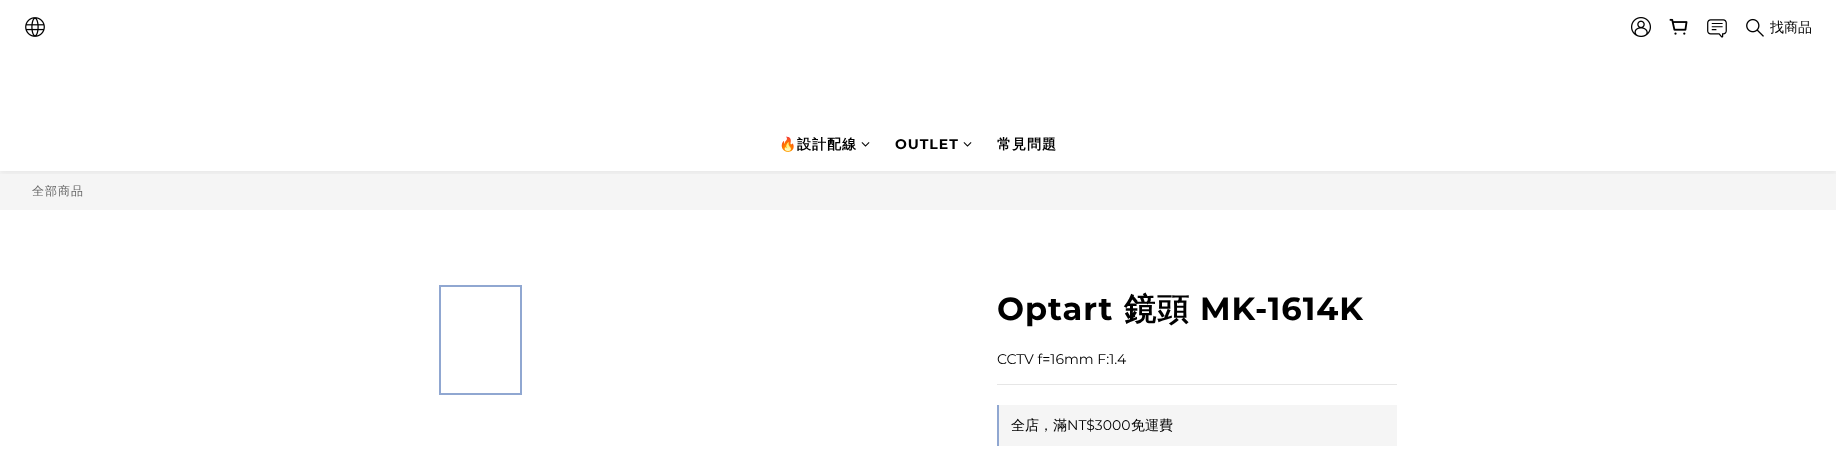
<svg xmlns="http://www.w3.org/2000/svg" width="1836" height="451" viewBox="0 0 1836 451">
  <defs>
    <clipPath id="clip1"><rect x="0" y="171" width="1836" height="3"/></clipPath>
    <filter id="blur1" x="-50%" y="-200%" width="200%" height="500%"><feGaussianBlur stdDeviation="3"/></filter>
  </defs>
  <rect width="100%" height="100%" fill="#ffffff"/>
  <rect x="0" y="171" width="1836" height="39" fill="#f5f5f5"/>
  <g clip-path="url(#clip1)">
    <rect x="0" y="2" width="1836" height="171" fill="#000000" fill-opacity="0.06" filter="url(#blur1)"/>
  </g>
  <image x="25" y="17" width="20" height="20" href="img1.png"/>
  <image x="1631" y="17" width="20" height="20" href="img2.png"/>
  <image x="1669" y="18" width="19" height="17" href="img3.png"/>
  <image x="1707" y="19" width="20" height="19" href="img4.png"/>
  <image x="1746" y="18" width="18" height="19" href="img5.png"/>
  <text x="1770" y="32" font-family="WenQuanYi Zen Hei" font-size="14" font-weight="500" fill="#000000">找商品</text>
  <text x="779" y="149" font-family="Noto Color Emoji" font-size="14" font-weight="bold" letter-spacing="1" fill="#000000">🔥</text>
  <text x="797" y="149" font-family="WenQuanYi Zen Hei" font-size="14" font-weight="bold" letter-spacing="1" fill="#000000">設計配線</text>
  <image x="861" y="142" width="9" height="5" href="img6.png"/>
  <text x="895" y="149" font-family="Montserrat" font-size="14" font-weight="bold" letter-spacing="1" fill="#000000">OUTLET</text>
  <image x="963" y="142" width="9" height="5" href="img6.png"/>
  <text x="997" y="149" font-family="WenQuanYi Zen Hei" font-size="14" font-weight="bold" letter-spacing="1" fill="#000000">常見問題</text>
  <text x="32" y="195" font-family="WenQuanYi Zen Hei" font-size="12" font-weight="500" letter-spacing="1" fill="#666666">全部商品</text>
  <rect x="440" y="286" width="81" height="108" fill="none" stroke="#90a7d1" stroke-width="2"/>
  <text x="997" y="320" font-family="Montserrat" font-size="32" font-weight="bold" letter-spacing="1" fill="#000000">Optart</text>
  <text x="1124" y="320" font-family="WenQuanYi Zen Hei" font-size="32" font-weight="bold" letter-spacing="1" fill="#000000">鏡頭</text>
  <text x="1200" y="320" font-family="Montserrat" font-size="32" font-weight="bold" letter-spacing="1" fill="#000000">MK-1614K</text>
  <text x="997" y="364" font-family="Montserrat" font-size="14" fill="#000000">CCTV f=16mm F:1.4</text>
  <rect x="997" y="384" width="400" height="1" fill="#e6e6e6"/>
  <rect x="999" y="405" width="398" height="41" fill="#f5f5f5"/>
  <rect x="997" y="405" width="2" height="41" fill="#90a7d1"/>
  <text x="1011" y="430" font-family="WenQuanYi Zen Hei" font-size="14" font-weight="500" fill="#000000">全店，滿</text>
  <text x="1067" y="430" font-family="Montserrat" font-size="14" fill="#000000">NT$3000</text>
  <text x="1131" y="430" font-family="WenQuanYi Zen Hei" font-size="14" font-weight="500" fill="#000000">免運費</text>
</svg>
